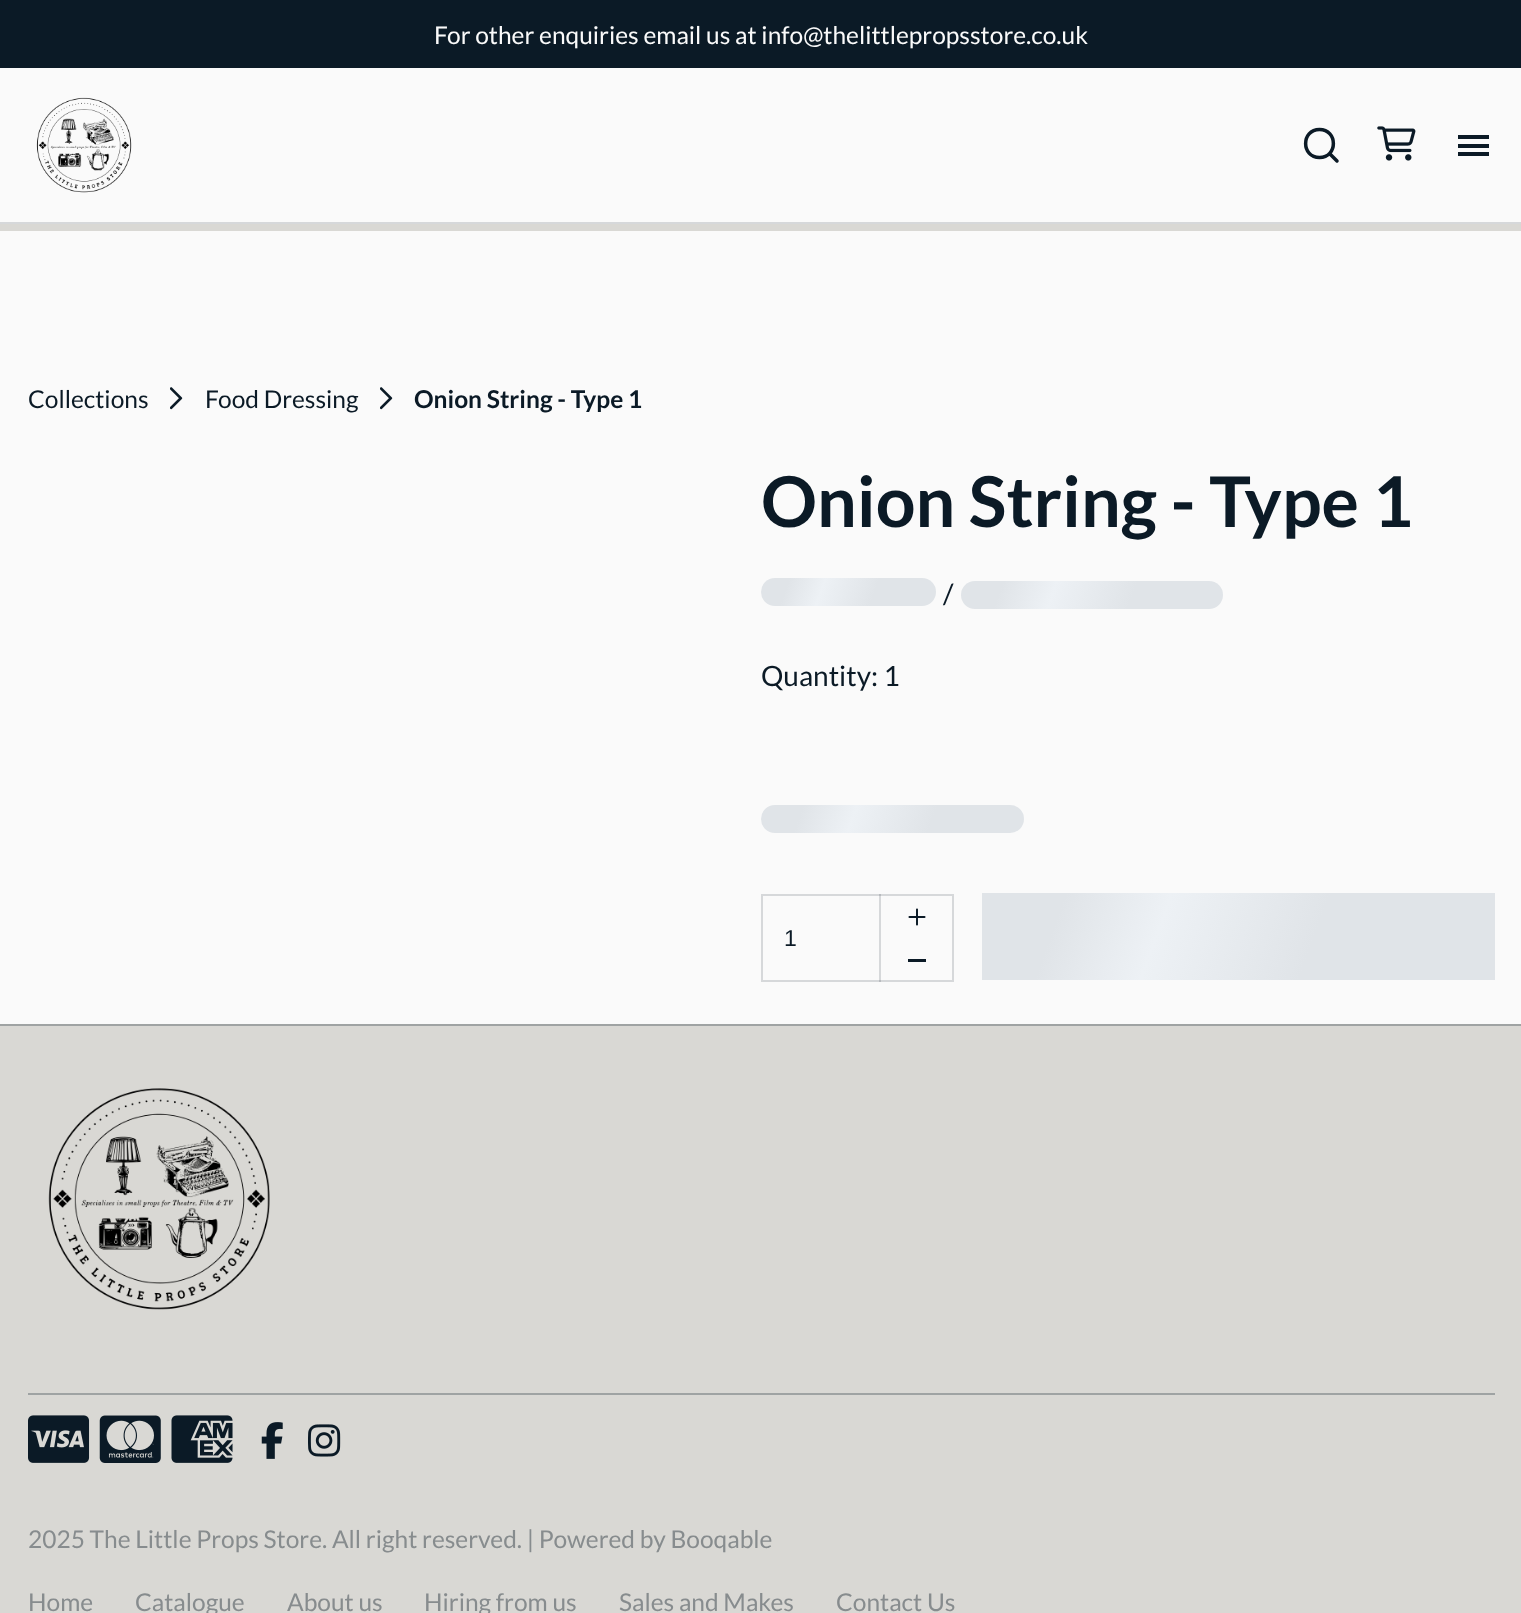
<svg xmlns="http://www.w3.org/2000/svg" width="1521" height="1613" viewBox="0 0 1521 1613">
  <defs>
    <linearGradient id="g1" gradientUnits="userSpaceOnUse" x1="777" y1="534" x2="1095" y2="649"><stop offset="0.08" stop-color="#e0e4e8"/><stop offset="0.18" stop-color="#edf1f5"/><stop offset="0.33" stop-color="#e0e4e8"/></linearGradient>
    <linearGradient id="g2" gradientUnits="userSpaceOnUse" x1="987" y1="509" x2="1460" y2="681"><stop offset="0.08" stop-color="#e0e4e8"/><stop offset="0.18" stop-color="#edf1f5"/><stop offset="0.33" stop-color="#e0e4e8"/></linearGradient>
    <linearGradient id="g3" gradientUnits="userSpaceOnUse" x1="787" y1="733" x2="1260" y2="905"><stop offset="0.08" stop-color="#e0e4e8"/><stop offset="0.18" stop-color="#edf1f5"/><stop offset="0.33" stop-color="#e0e4e8"/></linearGradient>
    <linearGradient id="g4" gradientUnits="userSpaceOnUse" x1="1028" y1="766" x2="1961" y2="1106"><stop offset="0.08" stop-color="#e0e4e8"/><stop offset="0.18" stop-color="#edf1f5"/><stop offset="0.33" stop-color="#e0e4e8"/></linearGradient>
  </defs>
  <rect width="100%" height="100%" fill="#fafafa"/>
  <rect x="0" y="0" width="1521" height="68" fill="#0b1a26"/>
  <text x="434" y="44" font-family="Lato" font-size="24.5" fill="#fafafa">For other enquiries email us at info@thelittlepropsstore.co.uk</text>
  <rect x="0" y="222" width="1521" height="2" fill="#d6d8da"/>
  <image x="36" y="97" width="96" height="96" href="img1.png"/>
  <path d="M1319.5 157.5C1338 157.5 1338 129.5 1319.5 129.5C1301 129.5 1301 157.5 1319.5 157.5ZM1337 161L1329.5 153.5" fill="none" stroke="#0b1a26" stroke-width="3.5" stroke-linecap="round" stroke-linejoin="round"/>
  <image x="1377" y="126" width="39" height="35" href="img2.png"/>
  <rect x="1458" y="135" width="31" height="4" fill="#0b1a26"/>
  <rect x="1458" y="144" width="31" height="4" fill="#0b1a26"/>
  <rect x="1458" y="152" width="31" height="4" fill="#0b1a26"/>
  <rect x="0" y="224" width="1521" height="7" fill="#d9d8d4"/>
  <text x="28" y="408" font-family="Lato" font-size="24.5" fill="#0b1a26">Collections</text>
  <image x="170" y="387" width="13" height="23" href="img3.png"/>
  <text x="205" y="408" font-family="Lato" font-size="24.5" fill="#0b1a26">Food Dressing</text>
  <image x="380" y="387" width="13" height="23" href="img3.png"/>
  <text x="414" y="408" font-family="Lato" font-size="24.5" font-weight="bold" fill="#0b1a26">Onion String - Type 1</text>
  <text x="761" y="527" font-family="Lato" font-size="70" font-weight="bold" fill="#0b1a26">Onion String - Type 1</text>
  <rect x="761" y="578" width="175" height="28" rx="14" fill="url(#g1)"/>
  <text x="943" y="604" font-family="Lato" font-size="28" fill="#0b1a26">/</text>
  <rect x="961" y="581" width="262" height="28" rx="14" fill="url(#g2)"/>
  <text x="761" y="686" font-family="Lato" font-size="28" fill="#0b1a26">Quantity: 1</text>
  <rect x="761" y="805" width="263" height="28" rx="14" fill="url(#g3)"/>
  <rect x="762" y="895" width="191" height="86" fill="none" stroke="#d6d8da" stroke-width="2"/>
  <text x="784" y="946" font-family="Liberation Sans" font-size="23" fill="#0b1a26">1</text>
  <rect x="879" y="894" width="2" height="88" fill="#0b1a26" fill-opacity="0.15"/>
  <image x="908" y="908" width="18" height="18" href="img4.png"/>
  <rect x="908" y="959" width="18" height="3" fill="#0b1a26"/>
  <rect x="982" y="893" width="513" height="87" fill="url(#g4)"/>
  <rect x="0" y="1026" width="1521" height="587" fill="#d9d8d4"/>
  <rect x="0" y="1024" width="1521" height="2" fill="#9fa3a3"/>
  <image x="48" y="1088" width="222" height="222" href="img5.png"/>
  <rect x="28" y="1393" width="1467" height="2" fill="#9fa3a3"/>
  <image x="28" y="1415" width="62" height="48" href="img6.png"/>
  <image x="99" y="1415" width="62" height="48" href="img7.png"/>
  <image x="171" y="1415" width="62" height="48" href="img8.png"/>
  <image x="261" y="1422" width="22" height="37" href="img9.png"/>
  <image x="308" y="1424" width="33" height="33" href="img10.png"/>
  <text x="28" y="1548" font-family="Lato" font-size="24.5" fill="#878c8e">2025 The Little Props Store. All right reserved. | Powered by Booqable</text>
  <text x="28" y="1611" font-family="Lato" font-size="24.5" fill="#878c8e">Home</text>
  <text x="135" y="1611" font-family="Lato" font-size="24.5" fill="#878c8e">Catalogue</text>
  <text x="287" y="1611" font-family="Lato" font-size="24.5" fill="#878c8e">About us</text>
  <text x="424" y="1611" font-family="Lato" font-size="24.5" fill="#878c8e">Hiring from us</text>
  <text x="619" y="1611" font-family="Lato" font-size="24.5" fill="#878c8e">Sales and Makes</text>
  <text x="836" y="1611" font-family="Lato" font-size="24.5" fill="#878c8e">Contact Us</text>
</svg>
